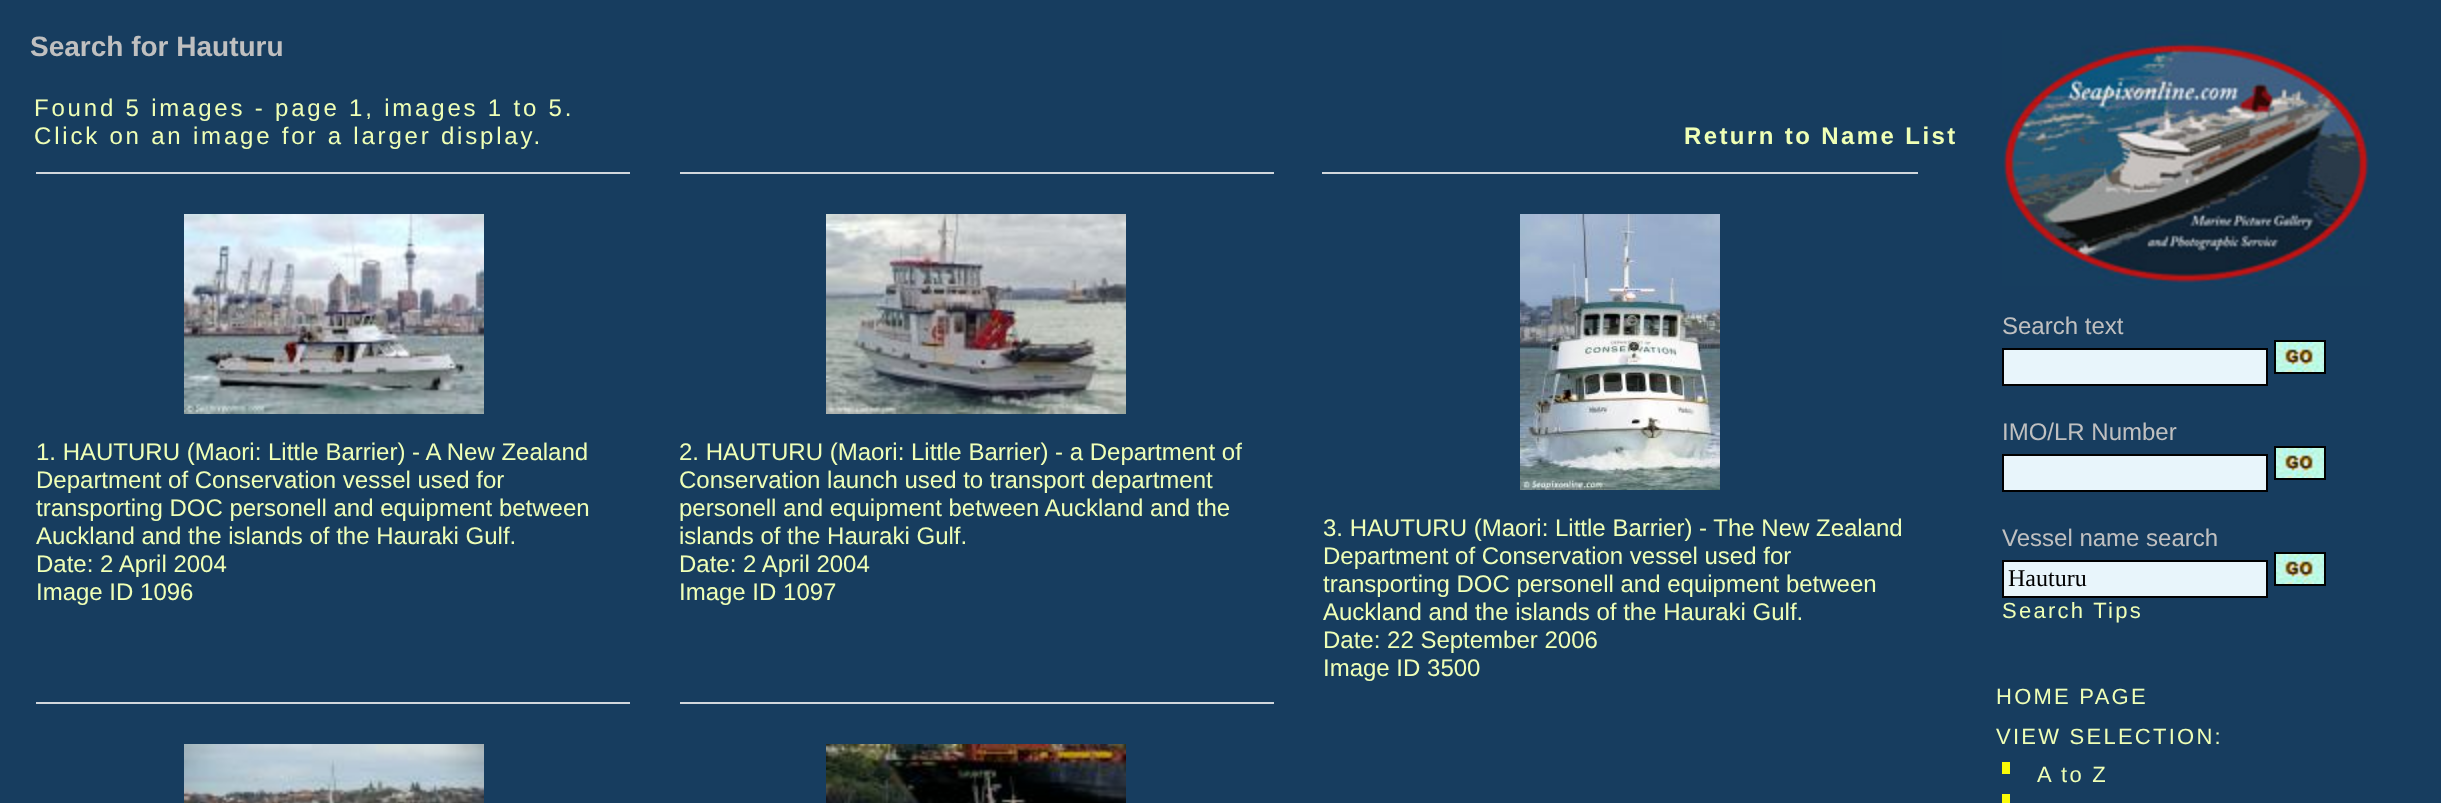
<svg xmlns="http://www.w3.org/2000/svg" width="2441" height="803" viewBox="0 0 2441 803">
  <rect width="100%" height="100%" fill="#173d5f"/>
  <text x="30" y="56" font-family="Liberation Sans" font-size="28" font-weight="bold" fill="#c0c0c0">Search for Hauturu</text>
  <text x="34" y="116" font-family="Liberation Sans" font-size="24" letter-spacing="2.8" fill="#efffb6">Found 5 images - page 1, images 1 to 5.</text>
  <text x="34" y="144" font-family="Liberation Sans" font-size="24" letter-spacing="2.8" fill="#efffb6">Click on an image for a larger display.</text>
  <text x="1684" y="144" font-family="Liberation Sans" font-size="24" font-weight="bold" letter-spacing="2.4" fill="#efffb6">Return to Name List</text>
  <rect x="36" y="172" width="594" height="2" fill="#d1d7dc"/>
  <image x="184" y="214" width="300" height="200" href="img1.png"/>
  <text x="36" y="460" font-family="Liberation Sans" font-size="24" fill="#efffb6">1. HAUTURU (Maori: Little Barrier) - A New Zealand</text>
  <text x="36" y="488" font-family="Liberation Sans" font-size="24" fill="#efffb6">Department of Conservation vessel used for</text>
  <text x="36" y="516" font-family="Liberation Sans" font-size="24" fill="#efffb6">transporting DOC personell and equipment between</text>
  <text x="36" y="544" font-family="Liberation Sans" font-size="24" fill="#efffb6">Auckland and the islands of the Hauraki Gulf.</text>
  <text x="36" y="572" font-family="Liberation Sans" font-size="24" fill="#efffb6">Date: 2 April 2004</text>
  <text x="36" y="600" font-family="Liberation Sans" font-size="24" fill="#efffb6">Image ID 1096</text>
  <rect x="680" y="172" width="594" height="2" fill="#d1d7dc"/>
  <image x="826" y="214" width="300" height="200" href="img2.png"/>
  <text x="679" y="460" font-family="Liberation Sans" font-size="24" fill="#efffb6">2. HAUTURU (Maori: Little Barrier) - a Department of</text>
  <text x="679" y="488" font-family="Liberation Sans" font-size="24" fill="#efffb6">Conservation launch used to transport department</text>
  <text x="679" y="516" font-family="Liberation Sans" font-size="24" fill="#efffb6">personell and equipment between Auckland and the</text>
  <text x="679" y="544" font-family="Liberation Sans" font-size="24" fill="#efffb6">islands of the Hauraki Gulf.</text>
  <text x="679" y="572" font-family="Liberation Sans" font-size="24" fill="#efffb6">Date: 2 April 2004</text>
  <text x="679" y="600" font-family="Liberation Sans" font-size="24" fill="#efffb6">Image ID 1097</text>
  <rect x="1322" y="172" width="596" height="2" fill="#d1d7dc"/>
  <image x="1520" y="214" width="200" height="276" href="img3.png"/>
  <text x="1323" y="536" font-family="Liberation Sans" font-size="24" fill="#efffb6">3. HAUTURU (Maori: Little Barrier) - The New Zealand</text>
  <text x="1323" y="564" font-family="Liberation Sans" font-size="24" fill="#efffb6">Department of Conservation vessel used for</text>
  <text x="1323" y="592" font-family="Liberation Sans" font-size="24" fill="#efffb6">transporting DOC personell and equipment between</text>
  <text x="1323" y="620" font-family="Liberation Sans" font-size="24" fill="#efffb6">Auckland and the islands of the Hauraki Gulf.</text>
  <text x="1323" y="648" font-family="Liberation Sans" font-size="24" fill="#efffb6">Date: 22 September 2006</text>
  <text x="1323" y="676" font-family="Liberation Sans" font-size="24" fill="#efffb6">Image ID 3500</text>
  <rect x="36" y="702" width="594" height="2" fill="#d1d7dc"/>
  <image x="184" y="744" width="300" height="59" href="img4.png"/>
  <rect x="680" y="702" width="594" height="2" fill="#d1d7dc"/>
  <image x="826" y="744" width="300" height="59" href="img5.png"/>
  <image x="2002" y="30" width="368" height="256" href="img6.png"/>
  <text x="2002" y="334" font-family="Liberation Sans" font-size="24" fill="#c0c0c0">Search text</text>
  <rect x="2003" y="349" width="264" height="36" fill="#e8f5fb" stroke="#000000" stroke-width="2"/>
  <rect x="2275" y="341" width="50" height="32" fill="none" stroke="#000000" stroke-width="2"/>
  <image x="2276" y="342" width="48" height="30" href="img7.png"/>
  <text x="2002" y="440" font-family="Liberation Sans" font-size="24" fill="#c0c0c0">IMO/LR Number</text>
  <rect x="2003" y="455" width="264" height="36" fill="#e8f5fb" stroke="#000000" stroke-width="2"/>
  <rect x="2275" y="447" width="50" height="32" fill="none" stroke="#000000" stroke-width="2"/>
  <image x="2276" y="448" width="48" height="30" href="img7.png"/>
  <text x="2002" y="546" font-family="Liberation Sans" font-size="24" fill="#c0c0c0">Vessel name search</text>
  <rect x="2003" y="561" width="264" height="36" fill="#e8f5fb" stroke="#000000" stroke-width="2"/>
  <text x="2008" y="586" font-family="Liberation Serif" font-size="24" fill="#000000">Hauturu</text>
  <rect x="2275" y="553" width="50" height="32" fill="none" stroke="#000000" stroke-width="2"/>
  <image x="2276" y="554" width="48" height="30" href="img7.png"/>
  <text x="2002" y="618" font-family="Liberation Sans" font-size="22" letter-spacing="2.25" fill="#efffb6">Search Tips</text>
  <text x="1996" y="704" font-family="Liberation Sans" font-size="22" letter-spacing="2.25" fill="#efffb6">HOME PAGE</text>
  <text x="1996" y="744" font-family="Liberation Sans" font-size="22" letter-spacing="2.25" fill="#efffb6">VIEW SELECTION:</text>
  <rect x="2002" y="762" width="8" height="12" fill="#f9fa06"/>
  <text x="2037" y="782" font-family="Liberation Sans" font-size="22" letter-spacing="2.25" fill="#efffb6">A to Z</text>
  <rect x="2002" y="794" width="8" height="9" fill="#f9fa06"/>
</svg>
